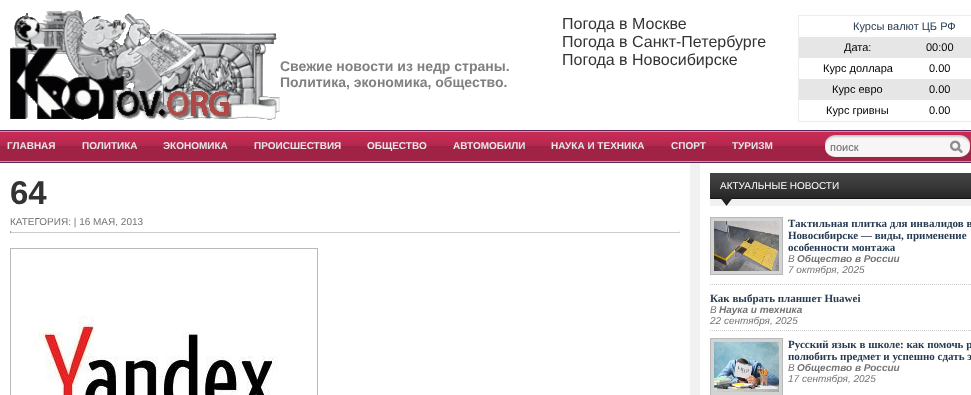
<svg xmlns="http://www.w3.org/2000/svg" width="971" height="395" viewBox="0 0 971 395">
  <rect width="100%" height="100%" fill="#f1f1f1"/>
  <rect x="0" y="0" width="971" height="130" fill="#ffffff"/>
  <image x="10" y="10" width="270" height="110" href="img1.png"/>
  <text x="280" y="71" font-family="Liberation Sans" font-size="14" font-weight="bold" fill="#808080">Свежие новости из недр страны.</text>
  <text x="280" y="87" font-family="Liberation Sans" font-size="14" font-weight="bold" fill="#808080">Политика, экономика, общество.</text>
  <text x="562" y="29" font-family="Liberation Sans" font-size="16" fill="#333333">Погода в Москве</text>
  <text x="562" y="47" font-family="Liberation Sans" font-size="16" fill="#333333">Погода в Санкт-Петербурге</text>
  <text x="562" y="65" font-family="Liberation Sans" font-size="16" fill="#333333">Погода в Новосибирске</text>
  <rect x="798.5" y="15.5" width="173" height="106" fill="none" stroke="#ececec"/>
  <text x="853" y="30" font-family="Liberation Sans" font-size="11" fill="#263b51">Курсы валют ЦБ РФ</text>
  <rect x="799" y="37" width="172" height="21" fill="#e6e6e6"/>
  <text x="844" y="51" font-family="Liberation Sans" font-size="11" fill="#000000">Дата:</text>
  <text x="926" y="51" font-family="Liberation Sans" font-size="11" fill="#000000">00:00</text>
  <text x="823" y="72" font-family="Liberation Sans" font-size="11" fill="#000000">Курс доллара</text>
  <text x="929" y="72" font-family="Liberation Sans" font-size="11" fill="#000000">0.00</text>
  <rect x="799" y="79" width="172" height="21" fill="#e6e6e6"/>
  <text x="832" y="93" font-family="Liberation Sans" font-size="11" fill="#000000">Курс евро</text>
  <text x="929" y="93" font-family="Liberation Sans" font-size="11" fill="#000000">0.00</text>
  <text x="826" y="114" font-family="Liberation Sans" font-size="11" fill="#000000">Курс гривны</text>
  <text x="929" y="114" font-family="Liberation Sans" font-size="11" fill="#000000">0.00</text>
  <image x="0" y="130" width="971" height="33" href="img2.png"/>
  <text x="7" y="149" font-family="Liberation Sans" font-size="10" font-weight="bold" fill="#e7e7e7">ГЛАВНАЯ</text>
  <text x="82" y="149" font-family="Liberation Sans" font-size="10" font-weight="bold" fill="#e7e7e7">ПОЛИТИКА</text>
  <text x="163" y="149" font-family="Liberation Sans" font-size="10" font-weight="bold" fill="#e7e7e7">ЭКОНОМИКА</text>
  <text x="254" y="149" font-family="Liberation Sans" font-size="10" font-weight="bold" fill="#e7e7e7">ПРОИСШЕСТВИЯ</text>
  <text x="367" y="149" font-family="Liberation Sans" font-size="10" font-weight="bold" fill="#e7e7e7">ОБЩЕСТВО</text>
  <text x="453" y="149" font-family="Liberation Sans" font-size="10" font-weight="bold" fill="#e7e7e7">АВТОМОБИЛИ</text>
  <text x="551" y="149" font-family="Liberation Sans" font-size="10" font-weight="bold" fill="#e7e7e7">НАУКА И ТЕХНИКА</text>
  <text x="671" y="149" font-family="Liberation Sans" font-size="10" font-weight="bold" fill="#e7e7e7">СПОРТ</text>
  <text x="732" y="149" font-family="Liberation Sans" font-size="10" font-weight="bold" fill="#e7e7e7">ТУРИЗМ</text>
  <image x="825" y="135" width="145" height="22" href="img3.png"/>
  <text x="830" y="151" font-family="Liberation Sans" font-size="11" fill="#656668">поиск</text>
  <rect x="0" y="163" width="690" height="232" fill="#ffffff"/>
  <text x="10" y="204" font-family="Liberation Sans" font-size="33" font-weight="bold" fill="#333333">64</text>
  <text x="10" y="225" font-family="Liberation Sans" font-size="10" fill="#737373">КАТЕГОРИЯ: | 16 МАЯ, 2013</text>
  <rect x="679" y="231" width="1" height="2" fill="#eeeeee"/>
  <rect x="10" y="232" width="670" height="1" fill="#cccccc"/>
  <rect x="10" y="231" width="1" height="2" fill="#9f9f9f"/>
  <rect x="10.5" y="248.5" width="307" height="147" fill="none" stroke="#b9b9b9"/>
  <image x="31" y="316" width="247" height="79" href="img4.png"/>
  <rect x="700" y="163" width="271" height="232" fill="#ffffff"/>
  <image x="710" y="173" width="261" height="33" href="img5.png"/>
  <text x="720" y="189" font-family="Liberation Sans" font-size="10" fill="#ffffff">АКТУАЛЬНЫЕ НОВОСТИ</text>
  <path d="M710 284.5H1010" fill="none" stroke="#cccccc" stroke-dasharray="1 1"/>
  <rect x="710.5" y="217.5" width="72" height="57" fill="#d3d3d3" stroke="#b9b9b9"/>
  <image x="714" y="221" width="65" height="50" href="img6.png"/>
  <text x="788" y="227" font-family="Liberation Serif" font-size="11" font-weight="bold" fill="#263b51">Тактильная плитка для инвалидов в</text>
  <text x="788" y="239" font-family="Liberation Serif" font-size="11" font-weight="bold" fill="#263b51">Новосибирске — виды, применение</text>
  <text x="788" y="251" font-family="Liberation Serif" font-size="11" font-weight="bold" fill="#263b51">особенности монтажа</text>
  <text x="788" y="262" font-family="Liberation Sans" font-size="10" font-style="italic" fill="#737373">В</text>
  <text x="797" y="262" font-family="Liberation Sans" font-size="10" font-weight="bold" font-style="italic" fill="#737373">Общество в России</text>
  <text x="788" y="273" font-family="Liberation Sans" font-size="10" font-style="italic" fill="#737373">7 октября, 2025</text>
  <path d="M710 330.5H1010" fill="none" stroke="#cccccc" stroke-dasharray="1 1"/>
  <text x="710" y="302" font-family="Liberation Serif" font-size="11" font-weight="bold" fill="#263b51">Как выбрать планшет Huawei</text>
  <text x="710" y="313" font-family="Liberation Sans" font-size="10" font-style="italic" fill="#737373">В</text>
  <text x="719" y="313" font-family="Liberation Sans" font-size="10" font-weight="bold" font-style="italic" fill="#737373">Наука и техника</text>
  <text x="710" y="324" font-family="Liberation Sans" font-size="10" font-style="italic" fill="#737373">22 сентября, 2025</text>
  <rect x="710.5" y="338.5" width="72" height="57" fill="#d3d3d3" stroke="#b9b9b9"/>
  <image x="714" y="342" width="65" height="50" href="img7.png"/>
  <text x="788" y="348" font-family="Liberation Serif" font-size="11" font-weight="bold" fill="#263b51">Русский язык в школе: как помочь р</text>
  <text x="788" y="360" font-family="Liberation Serif" font-size="11" font-weight="bold" fill="#263b51">полюбить предмет и успешно сдать э</text>
  <text x="788" y="371" font-family="Liberation Sans" font-size="10" font-style="italic" fill="#737373">В</text>
  <text x="797" y="371" font-family="Liberation Sans" font-size="10" font-weight="bold" font-style="italic" fill="#737373">Общество в России</text>
  <text x="788" y="382" font-family="Liberation Sans" font-size="10" font-style="italic" fill="#737373">17 сентября, 2025</text>
</svg>
